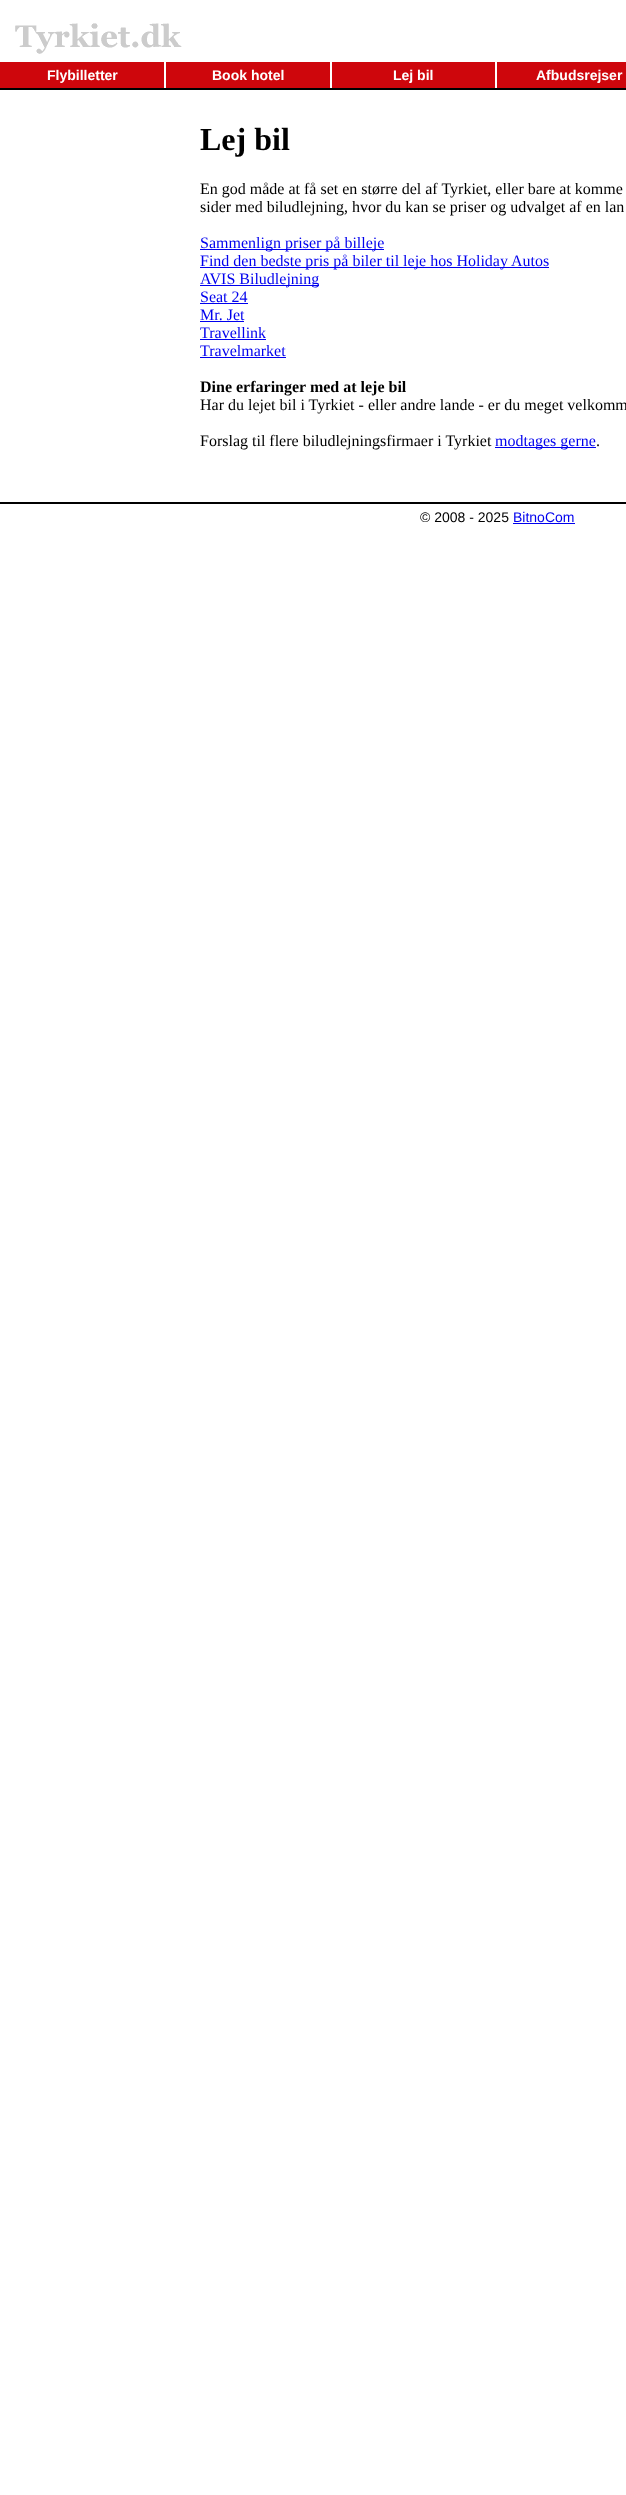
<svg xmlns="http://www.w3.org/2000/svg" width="626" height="2495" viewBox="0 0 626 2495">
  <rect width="100%" height="100%" fill="#ffffff"/>
  <image x="15" y="23" width="167" height="31" href="img1.png"/>
  <rect x="0" y="88" width="626" height="2" fill="#000000"/>
  <rect x="0" y="62" width="164" height="26" fill="#ce060c"/>
  <text x="47" y="80" font-family="Liberation Sans" font-size="14" font-weight="bold" fill="#ffffff">Flybilletter</text>
  <rect x="166" y="62" width="164" height="26" fill="#ce060c"/>
  <text x="212" y="80" font-family="Liberation Sans" font-size="14" font-weight="bold" fill="#ffffff">Book hotel</text>
  <rect x="332" y="62" width="163" height="26" fill="#ce060c"/>
  <text x="393" y="80" font-family="Liberation Sans" font-size="14" font-weight="bold" fill="#ffffff">Lej bil</text>
  <rect x="497" y="62" width="129" height="26" fill="#ce060c"/>
  <text x="536" y="80" font-family="Liberation Sans" font-size="14" font-weight="bold" fill="#ffffff">Afbudsrejser</text>
  <text x="200" y="150" font-family="Liberation Serif" font-size="32" font-weight="bold" fill="#000000">Lej bil</text>
  <text x="200" y="194" font-family="Liberation Serif" font-size="16" fill="#000000">En god måde at få set en større del af Tyrkiet, eller bare at komme</text>
  <text x="200" y="212" font-family="Liberation Serif" font-size="16" fill="#000000">sider med biludlejning, hvor du kan se priser og udvalget af en lan</text>
  <rect x="200" y="249" width="184" height="1" fill="#0000ee"/>
  <text x="200" y="248" font-family="Liberation Serif" font-size="16" fill="#0000ee">Sammenlign priser på billeje</text>
  <rect x="200" y="267" width="349" height="1" fill="#0000ee"/>
  <text x="200" y="266" font-family="Liberation Serif" font-size="16" fill="#0000ee">Find den bedste pris på biler til leje hos Holiday Autos</text>
  <rect x="200" y="285" width="119" height="1" fill="#0000ee"/>
  <text x="200" y="284" font-family="Liberation Serif" font-size="16" fill="#0000ee">AVIS Biludlejning</text>
  <text x="200" y="302" font-family="Liberation Serif" font-size="16" fill="#0000ee">Seat 24</text>
  <rect x="200" y="303" width="48" height="1" fill="#0000ee"/>
  <text x="200" y="320" font-family="Liberation Serif" font-size="16" fill="#0000ee">Mr. Jet</text>
  <rect x="200" y="321" width="44" height="1" fill="#0000ee"/>
  <text x="200" y="338" font-family="Liberation Serif" font-size="16" fill="#0000ee">Travellink</text>
  <rect x="200" y="339" width="66" height="1" fill="#0000ee"/>
  <text x="200" y="356" font-family="Liberation Serif" font-size="16" fill="#0000ee">Travelmarket</text>
  <rect x="200" y="357" width="86" height="1" fill="#0000ee"/>
  <text x="200" y="392" font-family="Liberation Serif" font-size="16" font-weight="bold" fill="#000000">Dine erfaringer med at leje bil</text>
  <text x="200" y="410" font-family="Liberation Serif" font-size="16" fill="#000000">Har du lejet bil i Tyrkiet - eller andre lande - er du meget velkomm</text>
  <text x="200" y="446" font-family="Liberation Serif" font-size="16" fill="#000000">Forslag til flere biludlejningsfirmaer i Tyrkiet</text>
  <rect x="495" y="447" width="101" height="1" fill="#0000ee"/>
  <text x="495" y="446" font-family="Liberation Serif" font-size="16" fill="#0000ee">modtages gerne</text>
  <text x="596" y="446" font-family="Liberation Serif" font-size="16" fill="#000000">.</text>
  <rect x="0" y="502" width="626" height="2" fill="#000000"/>
  <text x="420" y="522" font-family="Liberation Sans" font-size="14" fill="#000000">© 2008 - 2025</text>
  <text x="513" y="522" font-family="Liberation Sans" font-size="14" fill="#0000ee">BitnoCom</text>
  <rect x="513" y="523" width="62" height="1" fill="#0000ee"/>
</svg>
